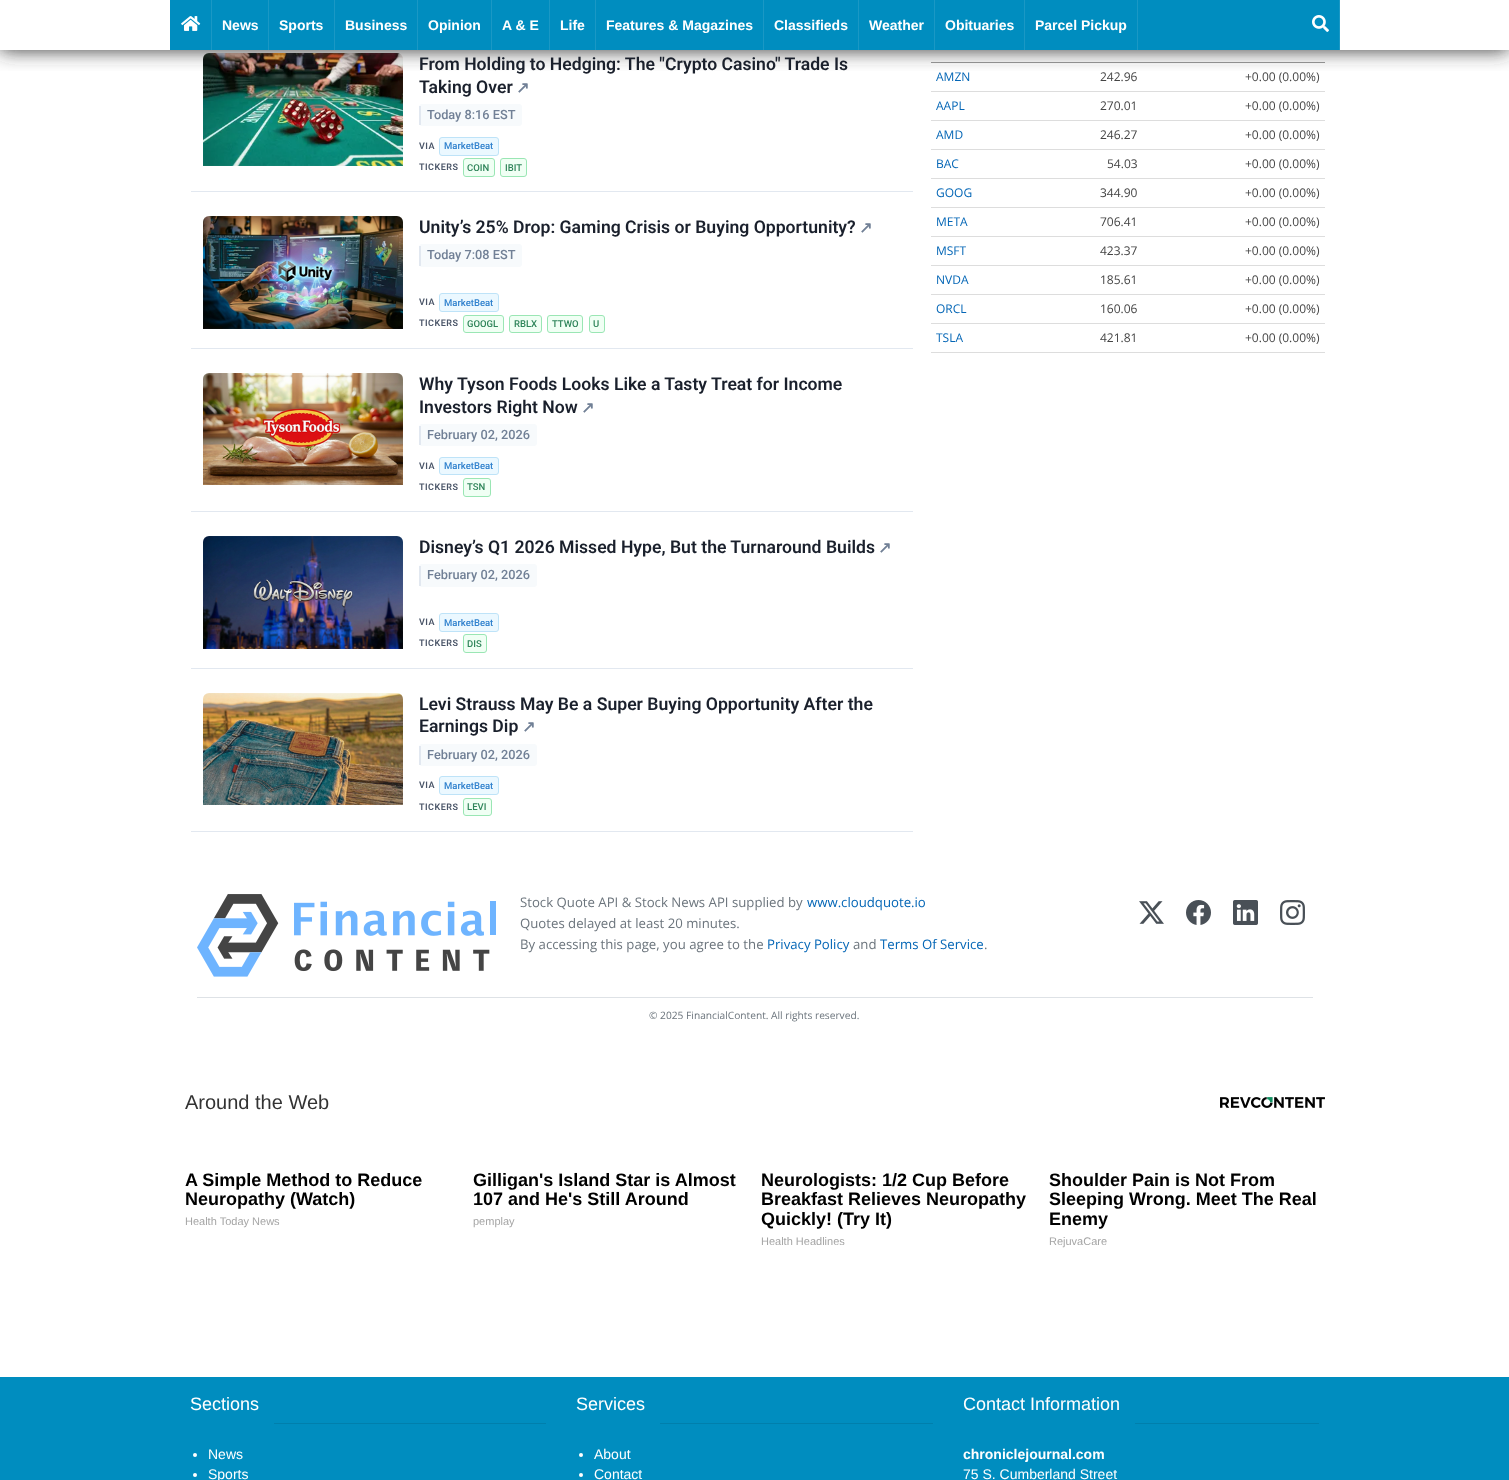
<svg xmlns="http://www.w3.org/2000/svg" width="1509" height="1480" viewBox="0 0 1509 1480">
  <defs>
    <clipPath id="clip1"><rect x="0" y="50" width="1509" height="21"/></clipPath>
    <filter id="blur1" x="-50%" y="-200%" width="200%" height="500%"><feGaussianBlur stdDeviation="10"/></filter>
  </defs>
  <rect width="100%" height="100%" fill="#ffffff"/>
  <image x="203" y="53" width="200" height="113" href="img3.png"/>
  <rect x="931" y="62" width="394" height="1" fill="#999999"/>
  <g clip-path="url(#clip1)">
    <rect x="0" y="0" width="1509" height="50" fill="#333333" filter="url(#blur1)"/>
  </g>
  <rect x="170" y="0" width="1169" height="50" fill="#008dbf"/>
  <rect x="211" y="0" width="1" height="50" fill="#1a98c5"/>
  <image x="181" y="16" width="20" height="15" href="img1.png"/>
  <rect x="268" y="0" width="1" height="50" fill="#1a98c5"/>
  <text x="222" y="30" font-family="Liberation Sans" font-size="14" font-weight="bold" fill="#ffffff">News</text>
  <rect x="334" y="0" width="1" height="50" fill="#1a98c5"/>
  <text x="279" y="30" font-family="Liberation Sans" font-size="14" font-weight="bold" fill="#ffffff">Sports</text>
  <rect x="417" y="0" width="1" height="50" fill="#1a98c5"/>
  <text x="345" y="30" font-family="Liberation Sans" font-size="14" font-weight="bold" fill="#ffffff">Business</text>
  <rect x="491" y="0" width="1" height="50" fill="#1a98c5"/>
  <text x="428" y="30" font-family="Liberation Sans" font-size="14" font-weight="bold" fill="#ffffff">Opinion</text>
  <rect x="549" y="0" width="1" height="50" fill="#1a98c5"/>
  <text x="502" y="30" font-family="Liberation Sans" font-size="14" font-weight="bold" fill="#ffffff">A &amp; E</text>
  <rect x="595" y="0" width="1" height="50" fill="#1a98c5"/>
  <text x="560" y="30" font-family="Liberation Sans" font-size="14" font-weight="bold" fill="#ffffff">Life</text>
  <rect x="763" y="0" width="1" height="50" fill="#1a98c5"/>
  <text x="606" y="30" font-family="Liberation Sans" font-size="14" font-weight="bold" fill="#ffffff">Features &amp; Magazines</text>
  <rect x="858" y="0" width="1" height="50" fill="#1a98c5"/>
  <text x="774" y="30" font-family="Liberation Sans" font-size="14" font-weight="bold" fill="#ffffff">Classifieds</text>
  <rect x="934" y="0" width="1" height="50" fill="#1a98c5"/>
  <text x="869" y="30" font-family="Liberation Sans" font-size="14" font-weight="bold" fill="#ffffff">Weather</text>
  <rect x="1024" y="0" width="1" height="50" fill="#1a98c5"/>
  <text x="945" y="30" font-family="Liberation Sans" font-size="14" font-weight="bold" fill="#ffffff">Obituaries</text>
  <rect x="1137" y="0" width="1" height="50" fill="#1a98c5"/>
  <text x="1035" y="30" font-family="Liberation Sans" font-size="14" font-weight="bold" fill="#ffffff">Parcel Pickup</text>
  <rect x="1339" y="0" width="1" height="50" fill="#1a98c5"/>
  <image x="1312" y="15" width="17" height="17" href="img2.png"/>
  <rect x="191" y="191" width="722" height="1" fill="#e2e8f0"/>
  <text x="419" y="70" font-family="Roboto" font-size="17.6" font-weight="600" fill="#1a202c">From Holding to Hedging: The "Crypto Casino" Trade Is</text>
  <text x="419" y="93" font-family="Roboto" font-size="17.6" font-weight="600" fill="#1a202c">Taking Over</text>
  <text x="516" y="93" font-family="DejaVu Sans" font-size="16" font-weight="bold" fill="#718096">↗</text>
  <rect x="419" y="104" width="103" height="22" rx="3" fill="#f7fafc"/>
  <rect x="419" y="106" width="2" height="19" fill="#e2e8f0"/>
  <text x="427" y="119" font-family="Roboto" font-size="12.75" font-weight="500" fill="#718096">Today 8:16 EST</text>
  <text x="419" y="149" font-family="Roboto" font-size="9" font-weight="600" letter-spacing="0.5" fill="#4a5568">VIA</text>
  <rect x="439.5" y="137.5" width="59" height="18" rx="2.5" fill="#ebf8ff" stroke="#bee3f8"/>
  <text x="444" y="149" font-family="Roboto" font-size="9.5" font-weight="500" fill="#3182ce">MarketBeat</text>
  <text x="419" y="170" font-family="Roboto" font-size="9" font-weight="600" letter-spacing="0.5" fill="#4a5568">TICKERS</text>
  <rect x="463.5" y="158.5" width="31" height="18" rx="2.5" fill="#f0fff4" stroke="#9ae6b4"/>
  <text x="467" y="171" font-family="Roboto" font-size="9.5" font-weight="500" fill="#2f855a">COIN</text>
  <rect x="500.5" y="158.5" width="26" height="18" rx="2.5" fill="#f0fff4" stroke="#9ae6b4"/>
  <text x="505" y="171" font-family="Roboto" font-size="9.5" font-weight="500" fill="#2f855a">IBIT</text>
  <rect x="191" y="348" width="722" height="1" fill="#e2e8f0"/>
  <image x="203" y="216" width="200" height="113" href="img4.png"/>
  <text x="419" y="233" font-family="Roboto" font-size="17.6" font-weight="600" fill="#1a202c">Unity’s 25% Drop: Gaming Crisis or Buying Opportunity?</text>
  <text x="859" y="233" font-family="DejaVu Sans" font-size="16" font-weight="bold" fill="#718096">↗</text>
  <rect x="419" y="244" width="103" height="23" rx="3" fill="#f7fafc"/>
  <rect x="419" y="246" width="2" height="20" fill="#e2e8f0"/>
  <text x="427" y="259" font-family="Roboto" font-size="12.75" font-weight="500" fill="#718096">Today 7:08 EST</text>
  <text x="419" y="305" font-family="Roboto" font-size="9" font-weight="600" letter-spacing="0.5" fill="#4a5568">VIA</text>
  <rect x="439.5" y="293.5" width="59" height="18" rx="2.5" fill="#ebf8ff" stroke="#bee3f8"/>
  <text x="444" y="306" font-family="Roboto" font-size="9.5" font-weight="500" fill="#3182ce">MarketBeat</text>
  <text x="419" y="326" font-family="Roboto" font-size="9" font-weight="600" letter-spacing="0.5" fill="#4a5568">TICKERS</text>
  <rect x="463.5" y="315.5" width="40" height="17" rx="2.5" fill="#f0fff4" stroke="#9ae6b4"/>
  <text x="467" y="327" font-family="Roboto" font-size="9.5" font-weight="500" fill="#2f855a">GOOGL</text>
  <rect x="509.5" y="315.5" width="32" height="17" rx="2.5" fill="#f0fff4" stroke="#9ae6b4"/>
  <text x="514" y="327" font-family="Roboto" font-size="9.5" font-weight="500" fill="#2f855a">RBLX</text>
  <rect x="547.5" y="315.5" width="35" height="17" rx="2.5" fill="#f0fff4" stroke="#9ae6b4"/>
  <text x="552" y="327" font-family="Roboto" font-size="9.5" font-weight="500" fill="#2f855a">TTWO</text>
  <rect x="589.5" y="315.5" width="15" height="17" rx="2.5" fill="#f0fff4" stroke="#9ae6b4"/>
  <text x="593" y="327" font-family="Roboto" font-size="9.5" font-weight="500" fill="#2f855a">U</text>
  <rect x="191" y="511" width="722" height="1" fill="#e2e8f0"/>
  <image x="203" y="373" width="200" height="112" href="img5.png"/>
  <text x="419" y="390" font-family="Roboto" font-size="17.6" font-weight="600" fill="#1a202c">Why Tyson Foods Looks Like a Tasty Treat for Income</text>
  <text x="419" y="413" font-family="Roboto" font-size="17.6" font-weight="600" fill="#1a202c">Investors Right Now</text>
  <text x="581" y="413" font-family="DejaVu Sans" font-size="16" font-weight="bold" fill="#718096">↗</text>
  <rect x="419" y="424" width="118" height="22" rx="3" fill="#f7fafc"/>
  <rect x="419" y="426" width="2" height="19" fill="#e2e8f0"/>
  <text x="427" y="439" font-family="Roboto" font-size="12.75" font-weight="500" fill="#718096">February 02, 2026</text>
  <text x="419" y="469" font-family="Roboto" font-size="9" font-weight="600" letter-spacing="0.5" fill="#4a5568">VIA</text>
  <rect x="439.5" y="457.5" width="59" height="17" rx="2.5" fill="#ebf8ff" stroke="#bee3f8"/>
  <text x="444" y="469" font-family="Roboto" font-size="9.5" font-weight="500" fill="#3182ce">MarketBeat</text>
  <text x="419" y="490" font-family="Roboto" font-size="9" font-weight="600" letter-spacing="0.5" fill="#4a5568">TICKERS</text>
  <rect x="463.5" y="478.5" width="27" height="18" rx="2.5" fill="#f0fff4" stroke="#9ae6b4"/>
  <text x="467" y="490" font-family="Roboto" font-size="9.5" font-weight="500" fill="#2f855a">TSN</text>
  <rect x="191" y="668" width="722" height="1" fill="#e2e8f0"/>
  <image x="203" y="536" width="200" height="113" href="img6.png"/>
  <text x="419" y="553" font-family="Roboto" font-size="17.6" font-weight="600" fill="#1a202c">Disney’s Q1 2026 Missed Hype, But the Turnaround Builds</text>
  <text x="878" y="553" font-family="DejaVu Sans" font-size="16" font-weight="bold" fill="#718096">↗</text>
  <rect x="419" y="564" width="118" height="23" rx="3" fill="#f7fafc"/>
  <rect x="419" y="566" width="2" height="20" fill="#e2e8f0"/>
  <text x="427" y="579" font-family="Roboto" font-size="12.75" font-weight="500" fill="#718096">February 02, 2026</text>
  <text x="419" y="625" font-family="Roboto" font-size="9" font-weight="600" letter-spacing="0.5" fill="#4a5568">VIA</text>
  <rect x="439.5" y="613.5" width="59" height="18" rx="2.5" fill="#ebf8ff" stroke="#bee3f8"/>
  <text x="444" y="626" font-family="Roboto" font-size="9.5" font-weight="500" fill="#3182ce">MarketBeat</text>
  <text x="419" y="646" font-family="Roboto" font-size="9" font-weight="600" letter-spacing="0.5" fill="#4a5568">TICKERS</text>
  <rect x="463.5" y="634.5" width="23" height="18" rx="2.5" fill="#f0fff4" stroke="#9ae6b4"/>
  <text x="467" y="647" font-family="Roboto" font-size="9.5" font-weight="500" fill="#2f855a">DIS</text>
  <rect x="191" y="831" width="722" height="1" fill="#e2e8f0"/>
  <image x="203" y="693" width="200" height="112" href="img7.png"/>
  <text x="419" y="710" font-family="Roboto" font-size="17.6" font-weight="600" fill="#1a202c">Levi Strauss May Be a Super Buying Opportunity After the</text>
  <text x="419" y="732" font-family="Roboto" font-size="17.6" font-weight="600" fill="#1a202c">Earnings Dip</text>
  <text x="522" y="732" font-family="DejaVu Sans" font-size="16" font-weight="bold" fill="#718096">↗</text>
  <rect x="419" y="744" width="118" height="22" rx="3" fill="#f7fafc"/>
  <rect x="419" y="746" width="2" height="19" fill="#e2e8f0"/>
  <text x="427" y="759" font-family="Roboto" font-size="12.75" font-weight="500" fill="#718096">February 02, 2026</text>
  <text x="419" y="788" font-family="Roboto" font-size="9" font-weight="600" letter-spacing="0.5" fill="#4a5568">VIA</text>
  <rect x="439.5" y="776.5" width="59" height="18" rx="2.5" fill="#ebf8ff" stroke="#bee3f8"/>
  <text x="444" y="789" font-family="Roboto" font-size="9.5" font-weight="500" fill="#3182ce">MarketBeat</text>
  <text x="419" y="810" font-family="Roboto" font-size="9" font-weight="600" letter-spacing="0.5" fill="#4a5568">TICKERS</text>
  <rect x="463.5" y="798.5" width="28" height="17" rx="2.5" fill="#f0fff4" stroke="#9ae6b4"/>
  <text x="467" y="810" font-family="Roboto" font-size="9.5" font-weight="500" fill="#2f855a">LEVI</text>
  <rect x="931" y="91" width="394" height="1" fill="#dddddd"/>
  <text x="936" y="81" font-family="Open Sans" font-size="12" fill="#0466b6">AMZN</text>
  <text x="1100" y="81" font-family="Open Sans" font-size="12" fill="#444444">242.96</text>
  <text x="1245" y="81" font-family="Open Sans" font-size="12" fill="#444444">+0.00 (0.00%)</text>
  <rect x="931" y="120" width="394" height="1" fill="#dddddd"/>
  <text x="936" y="110" font-family="Open Sans" font-size="12" fill="#0466b6">AAPL</text>
  <text x="1100" y="110" font-family="Open Sans" font-size="12" fill="#444444">270.01</text>
  <text x="1245" y="110" font-family="Open Sans" font-size="12" fill="#444444">+0.00 (0.00%)</text>
  <rect x="931" y="149" width="394" height="1" fill="#dddddd"/>
  <text x="936" y="139" font-family="Open Sans" font-size="12" fill="#0466b6">AMD</text>
  <text x="1100" y="139" font-family="Open Sans" font-size="12" fill="#444444">246.27</text>
  <text x="1245" y="139" font-family="Open Sans" font-size="12" fill="#444444">+0.00 (0.00%)</text>
  <rect x="931" y="178" width="394" height="1" fill="#dddddd"/>
  <text x="936" y="168" font-family="Open Sans" font-size="12" fill="#0466b6">BAC</text>
  <text x="1107" y="168" font-family="Open Sans" font-size="12" fill="#444444">54.03</text>
  <text x="1245" y="168" font-family="Open Sans" font-size="12" fill="#444444">+0.00 (0.00%)</text>
  <rect x="931" y="207" width="394" height="1" fill="#dddddd"/>
  <text x="936" y="197" font-family="Open Sans" font-size="12" fill="#0466b6">GOOG</text>
  <text x="1100" y="197" font-family="Open Sans" font-size="12" fill="#444444">344.90</text>
  <text x="1245" y="197" font-family="Open Sans" font-size="12" fill="#444444">+0.00 (0.00%)</text>
  <rect x="931" y="236" width="394" height="1" fill="#dddddd"/>
  <text x="936" y="226" font-family="Open Sans" font-size="12" fill="#0466b6">META</text>
  <text x="1100" y="226" font-family="Open Sans" font-size="12" fill="#444444">706.41</text>
  <text x="1245" y="226" font-family="Open Sans" font-size="12" fill="#444444">+0.00 (0.00%)</text>
  <rect x="931" y="265" width="394" height="1" fill="#dddddd"/>
  <text x="936" y="255" font-family="Open Sans" font-size="12" fill="#0466b6">MSFT</text>
  <text x="1100" y="255" font-family="Open Sans" font-size="12" fill="#444444">423.37</text>
  <text x="1245" y="255" font-family="Open Sans" font-size="12" fill="#444444">+0.00 (0.00%)</text>
  <rect x="931" y="294" width="394" height="1" fill="#dddddd"/>
  <text x="936" y="284" font-family="Open Sans" font-size="12" fill="#0466b6">NVDA</text>
  <text x="1100" y="284" font-family="Open Sans" font-size="12" fill="#444444">185.61</text>
  <text x="1245" y="284" font-family="Open Sans" font-size="12" fill="#444444">+0.00 (0.00%)</text>
  <rect x="931" y="323" width="394" height="1" fill="#dddddd"/>
  <text x="936" y="313" font-family="Open Sans" font-size="12" fill="#0466b6">ORCL</text>
  <text x="1100" y="313" font-family="Open Sans" font-size="12" fill="#444444">160.06</text>
  <text x="1245" y="313" font-family="Open Sans" font-size="12" fill="#444444">+0.00 (0.00%)</text>
  <rect x="931" y="352" width="394" height="1" fill="#dddddd"/>
  <text x="936" y="342" font-family="Open Sans" font-size="12" fill="#0466b6">TSLA</text>
  <text x="1100" y="342" font-family="Open Sans" font-size="12" fill="#444444">421.81</text>
  <text x="1245" y="342" font-family="Open Sans" font-size="12" fill="#444444">+0.00 (0.00%)</text>
  <image x="197" y="894" width="299" height="83" href="img8.png"/>
  <text x="520" y="907" font-family="Open Sans" font-size="13.2" fill="#6c757d">Stock Quote API &amp; Stock News API supplied by</text>
  <text x="807" y="907" font-family="Open Sans" font-size="13.2" fill="#0466b6">www.cloudquote.io</text>
  <text x="520" y="928" font-family="Open Sans" font-size="13.2" fill="#6c757d">Quotes delayed at least 20 minutes.</text>
  <text x="520" y="949" font-family="Open Sans" font-size="13.2" fill="#6c757d">By accessing this page, you agree to the</text>
  <text x="767" y="949" font-family="Open Sans" font-size="13.2" fill="#0466b6">Privacy Policy</text>
  <text x="853" y="949" font-family="Open Sans" font-size="13.2" fill="#6c757d">and</text>
  <text x="880" y="949" font-family="Open Sans" font-size="13.2" fill="#0466b6">Terms Of Service</text>
  <text x="984" y="949" font-family="Open Sans" font-size="13.2" fill="#6c757d">.</text>
  <image x="1139" y="901" width="25" height="23" href="img9.png"/>
  <image x="1186" y="900" width="25" height="25" href="img10.png"/>
  <image x="1233" y="900" width="25" height="25" href="img11.png"/>
  <image x="1280" y="900" width="25" height="25" href="img12.png"/>
  <rect x="197" y="997" width="1116" height="1" fill="#dee2e6"/>
  <text x="649" y="1019" font-family="Open Sans" font-size="10.2" fill="#6c757d">© 2025 FinancialContent. All rights reserved.</text>
  <text x="185" y="1109" font-family="Liberation Sans" font-size="20" fill="#333333">Around the Web</text>
  <image x="1220" y="1097" width="105" height="11" href="img13.png"/>
  <text x="185" y="1186" font-family="Liberation Sans" font-size="18" font-weight="bold" fill="#000000">A Simple Method to Reduce</text>
  <text x="185" y="1205" font-family="Liberation Sans" font-size="18" font-weight="bold" fill="#000000">Neuropathy (Watch)</text>
  <text x="185" y="1225" font-family="Liberation Sans" font-size="11" fill="#a5a5a5">Health Today News</text>
  <text x="473" y="1186" font-family="Liberation Sans" font-size="18" font-weight="bold" fill="#000000">Gilligan's Island Star is Almost</text>
  <text x="473" y="1205" font-family="Liberation Sans" font-size="18" font-weight="bold" fill="#000000">107 and He's Still Around</text>
  <text x="473" y="1225" font-family="Liberation Sans" font-size="11" fill="#a5a5a5">pemplay</text>
  <text x="761" y="1186" font-family="Liberation Sans" font-size="18" font-weight="bold" fill="#000000">Neurologists: 1/2 Cup Before</text>
  <text x="761" y="1205" font-family="Liberation Sans" font-size="18" font-weight="bold" fill="#000000">Breakfast Relieves Neurоpathy</text>
  <text x="761" y="1225" font-family="Liberation Sans" font-size="18" font-weight="bold" fill="#000000">Quickly! (Try It)</text>
  <text x="761" y="1245" font-family="Liberation Sans" font-size="11" fill="#a5a5a5">Health Headlines</text>
  <text x="1049" y="1186" font-family="Liberation Sans" font-size="18" font-weight="bold" fill="#000000">Shoulder Pain is Not From</text>
  <text x="1049" y="1205" font-family="Liberation Sans" font-size="18" font-weight="bold" fill="#000000">Sleeping Wrong. Meet The Real</text>
  <text x="1049" y="1225" font-family="Liberation Sans" font-size="18" font-weight="bold" fill="#000000">Enemy</text>
  <text x="1049" y="1245" font-family="Liberation Sans" font-size="11" fill="#a5a5a5">RejuvaCare</text>
  <rect x="0" y="1377" width="1509" height="103" fill="#008dbf"/>
  <rect x="274" y="1423" width="272" height="1" fill="#007fac"/>
  <text x="190" y="1410" font-family="Liberation Sans" font-size="18" fill="#ffffff">Sections</text>
  <circle cx="195" cy="1455" r="2" fill="#ffffff"/>
  <text x="208" y="1459" font-family="Liberation Sans" font-size="14" fill="#ffffff">News</text>
  <circle cx="195" cy="1475" r="2" fill="#ffffff"/>
  <text x="208" y="1479" font-family="Liberation Sans" font-size="14" fill="#ffffff">Sports</text>
  <rect x="660" y="1423" width="273" height="1" fill="#007fac"/>
  <text x="576" y="1410" font-family="Liberation Sans" font-size="18" fill="#ffffff">Services</text>
  <circle cx="581" cy="1455" r="2" fill="#ffffff"/>
  <text x="594" y="1459" font-family="Liberation Sans" font-size="14" fill="#ffffff">About</text>
  <circle cx="581" cy="1475" r="2" fill="#ffffff"/>
  <text x="594" y="1479" font-family="Liberation Sans" font-size="14" fill="#ffffff">Contact</text>
  <rect x="1135" y="1423" width="184" height="1" fill="#007fac"/>
  <text x="963" y="1410" font-family="Liberation Sans" font-size="18" fill="#ffffff">Contact Information</text>
  <text x="963" y="1459" font-family="Liberation Sans" font-size="14" font-weight="bold" fill="#ffffff">chroniclejournal.com</text>
  <text x="963" y="1479" font-family="Liberation Sans" font-size="14" fill="#ffffff">75 S. Cumberland Street</text>
</svg>
